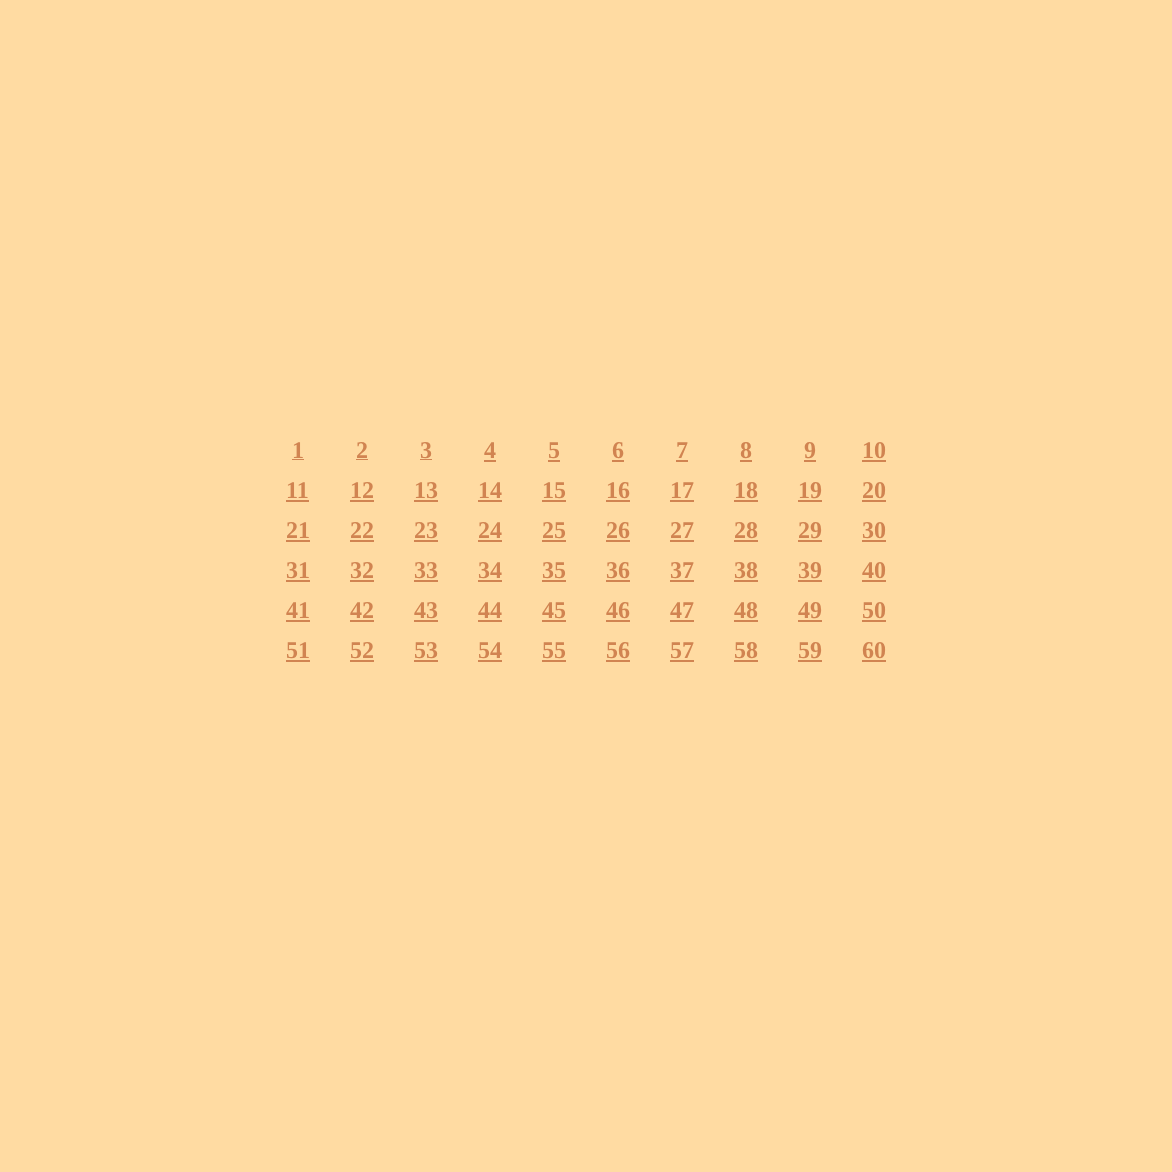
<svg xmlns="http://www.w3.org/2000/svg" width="1172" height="1172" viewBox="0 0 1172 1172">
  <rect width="100%" height="100%" fill="#ffdba2"/>
  <text x="292" y="458" font-family="Liberation Serif" font-size="24" font-weight="bold" fill="#d18451">1</text>
  <rect x="292" y="459" width="12" height="1" fill="#d18451"/>
  <text x="356" y="458" font-family="Liberation Serif" font-size="24" font-weight="bold" fill="#d18451">2</text>
  <rect x="356" y="459" width="12" height="1" fill="#d18451"/>
  <text x="420" y="458" font-family="Liberation Serif" font-size="24" font-weight="bold" fill="#d18451">3</text>
  <rect x="420" y="459" width="12" height="1" fill="#d18451"/>
  <text x="484" y="458" font-family="Liberation Serif" font-size="24" font-weight="bold" fill="#d18451">4</text>
  <rect x="484" y="460" width="12" height="2" fill="#d18451"/>
  <text x="548" y="458" font-family="Liberation Serif" font-size="24" font-weight="bold" fill="#d18451">5</text>
  <rect x="548" y="460" width="12" height="2" fill="#d18451"/>
  <text x="612" y="458" font-family="Liberation Serif" font-size="24" font-weight="bold" fill="#d18451">6</text>
  <rect x="612" y="460" width="12" height="2" fill="#d18451"/>
  <text x="676" y="458" font-family="Liberation Serif" font-size="24" font-weight="bold" fill="#d18451">7</text>
  <rect x="676" y="460" width="12" height="2" fill="#d18451"/>
  <text x="740" y="458" font-family="Liberation Serif" font-size="24" font-weight="bold" fill="#d18451">8</text>
  <rect x="740" y="460" width="12" height="2" fill="#d18451"/>
  <text x="804" y="458" font-family="Liberation Serif" font-size="24" font-weight="bold" fill="#d18451">9</text>
  <rect x="804" y="460" width="12" height="2" fill="#d18451"/>
  <text x="862" y="458" font-family="Liberation Serif" font-size="24" font-weight="bold" fill="#d18451">10</text>
  <rect x="862" y="460" width="24" height="2" fill="#d18451"/>
  <text x="286" y="498" font-family="Liberation Serif" font-size="24" font-weight="bold" fill="#d18451">11</text>
  <rect x="286" y="500" width="23" height="2" fill="#d18451"/>
  <text x="350" y="498" font-family="Liberation Serif" font-size="24" font-weight="bold" fill="#d18451">12</text>
  <rect x="350" y="500" width="24" height="2" fill="#d18451"/>
  <text x="414" y="498" font-family="Liberation Serif" font-size="24" font-weight="bold" fill="#d18451">13</text>
  <rect x="414" y="500" width="24" height="2" fill="#d18451"/>
  <text x="478" y="498" font-family="Liberation Serif" font-size="24" font-weight="bold" fill="#d18451">14</text>
  <rect x="478" y="500" width="24" height="2" fill="#d18451"/>
  <text x="542" y="498" font-family="Liberation Serif" font-size="24" font-weight="bold" fill="#d18451">15</text>
  <rect x="542" y="500" width="24" height="2" fill="#d18451"/>
  <text x="606" y="498" font-family="Liberation Serif" font-size="24" font-weight="bold" fill="#d18451">16</text>
  <rect x="606" y="500" width="24" height="2" fill="#d18451"/>
  <text x="670" y="498" font-family="Liberation Serif" font-size="24" font-weight="bold" fill="#d18451">17</text>
  <rect x="670" y="500" width="24" height="2" fill="#d18451"/>
  <text x="734" y="498" font-family="Liberation Serif" font-size="24" font-weight="bold" fill="#d18451">18</text>
  <rect x="734" y="500" width="24" height="2" fill="#d18451"/>
  <text x="798" y="498" font-family="Liberation Serif" font-size="24" font-weight="bold" fill="#d18451">19</text>
  <rect x="798" y="500" width="24" height="2" fill="#d18451"/>
  <text x="862" y="498" font-family="Liberation Serif" font-size="24" font-weight="bold" fill="#d18451">20</text>
  <rect x="862" y="500" width="24" height="2" fill="#d18451"/>
  <text x="286" y="538" font-family="Liberation Serif" font-size="24" font-weight="bold" fill="#d18451">21</text>
  <rect x="286" y="540" width="24" height="2" fill="#d18451"/>
  <text x="350" y="538" font-family="Liberation Serif" font-size="24" font-weight="bold" fill="#d18451">22</text>
  <rect x="350" y="540" width="24" height="2" fill="#d18451"/>
  <text x="414" y="538" font-family="Liberation Serif" font-size="24" font-weight="bold" fill="#d18451">23</text>
  <rect x="414" y="540" width="24" height="2" fill="#d18451"/>
  <text x="478" y="538" font-family="Liberation Serif" font-size="24" font-weight="bold" fill="#d18451">24</text>
  <rect x="478" y="540" width="24" height="2" fill="#d18451"/>
  <text x="542" y="538" font-family="Liberation Serif" font-size="24" font-weight="bold" fill="#d18451">25</text>
  <rect x="542" y="540" width="24" height="2" fill="#d18451"/>
  <text x="606" y="538" font-family="Liberation Serif" font-size="24" font-weight="bold" fill="#d18451">26</text>
  <rect x="606" y="540" width="24" height="2" fill="#d18451"/>
  <text x="670" y="538" font-family="Liberation Serif" font-size="24" font-weight="bold" fill="#d18451">27</text>
  <rect x="670" y="540" width="24" height="2" fill="#d18451"/>
  <text x="734" y="538" font-family="Liberation Serif" font-size="24" font-weight="bold" fill="#d18451">28</text>
  <rect x="734" y="540" width="24" height="2" fill="#d18451"/>
  <text x="798" y="538" font-family="Liberation Serif" font-size="24" font-weight="bold" fill="#d18451">29</text>
  <rect x="798" y="540" width="24" height="2" fill="#d18451"/>
  <text x="862" y="538" font-family="Liberation Serif" font-size="24" font-weight="bold" fill="#d18451">30</text>
  <rect x="862" y="540" width="24" height="2" fill="#d18451"/>
  <text x="286" y="578" font-family="Liberation Serif" font-size="24" font-weight="bold" fill="#d18451">31</text>
  <rect x="286" y="580" width="24" height="2" fill="#d18451"/>
  <text x="350" y="578" font-family="Liberation Serif" font-size="24" font-weight="bold" fill="#d18451">32</text>
  <rect x="350" y="580" width="24" height="2" fill="#d18451"/>
  <text x="414" y="578" font-family="Liberation Serif" font-size="24" font-weight="bold" fill="#d18451">33</text>
  <rect x="414" y="580" width="24" height="2" fill="#d18451"/>
  <text x="478" y="578" font-family="Liberation Serif" font-size="24" font-weight="bold" fill="#d18451">34</text>
  <rect x="478" y="580" width="24" height="2" fill="#d18451"/>
  <text x="542" y="578" font-family="Liberation Serif" font-size="24" font-weight="bold" fill="#d18451">35</text>
  <rect x="542" y="580" width="24" height="2" fill="#d18451"/>
  <text x="606" y="578" font-family="Liberation Serif" font-size="24" font-weight="bold" fill="#d18451">36</text>
  <rect x="606" y="580" width="24" height="2" fill="#d18451"/>
  <text x="670" y="578" font-family="Liberation Serif" font-size="24" font-weight="bold" fill="#d18451">37</text>
  <rect x="670" y="580" width="24" height="2" fill="#d18451"/>
  <text x="734" y="578" font-family="Liberation Serif" font-size="24" font-weight="bold" fill="#d18451">38</text>
  <rect x="734" y="580" width="24" height="2" fill="#d18451"/>
  <text x="798" y="578" font-family="Liberation Serif" font-size="24" font-weight="bold" fill="#d18451">39</text>
  <rect x="798" y="580" width="24" height="2" fill="#d18451"/>
  <text x="862" y="578" font-family="Liberation Serif" font-size="24" font-weight="bold" fill="#d18451">40</text>
  <rect x="862" y="580" width="24" height="2" fill="#d18451"/>
  <text x="286" y="618" font-family="Liberation Serif" font-size="24" font-weight="bold" fill="#d18451">41</text>
  <rect x="286" y="620" width="24" height="2" fill="#d18451"/>
  <text x="350" y="618" font-family="Liberation Serif" font-size="24" font-weight="bold" fill="#d18451">42</text>
  <rect x="350" y="620" width="24" height="2" fill="#d18451"/>
  <text x="414" y="618" font-family="Liberation Serif" font-size="24" font-weight="bold" fill="#d18451">43</text>
  <rect x="414" y="620" width="24" height="2" fill="#d18451"/>
  <text x="478" y="618" font-family="Liberation Serif" font-size="24" font-weight="bold" fill="#d18451">44</text>
  <rect x="478" y="620" width="24" height="2" fill="#d18451"/>
  <text x="542" y="618" font-family="Liberation Serif" font-size="24" font-weight="bold" fill="#d18451">45</text>
  <rect x="542" y="620" width="24" height="2" fill="#d18451"/>
  <text x="606" y="618" font-family="Liberation Serif" font-size="24" font-weight="bold" fill="#d18451">46</text>
  <rect x="606" y="620" width="24" height="2" fill="#d18451"/>
  <text x="670" y="618" font-family="Liberation Serif" font-size="24" font-weight="bold" fill="#d18451">47</text>
  <rect x="670" y="620" width="24" height="2" fill="#d18451"/>
  <text x="734" y="618" font-family="Liberation Serif" font-size="24" font-weight="bold" fill="#d18451">48</text>
  <rect x="734" y="620" width="24" height="2" fill="#d18451"/>
  <text x="798" y="618" font-family="Liberation Serif" font-size="24" font-weight="bold" fill="#d18451">49</text>
  <rect x="798" y="620" width="24" height="2" fill="#d18451"/>
  <text x="862" y="618" font-family="Liberation Serif" font-size="24" font-weight="bold" fill="#d18451">50</text>
  <rect x="862" y="620" width="24" height="2" fill="#d18451"/>
  <text x="286" y="658" font-family="Liberation Serif" font-size="24" font-weight="bold" fill="#d18451">51</text>
  <rect x="286" y="660" width="24" height="2" fill="#d18451"/>
  <text x="350" y="658" font-family="Liberation Serif" font-size="24" font-weight="bold" fill="#d18451">52</text>
  <rect x="350" y="660" width="24" height="2" fill="#d18451"/>
  <text x="414" y="658" font-family="Liberation Serif" font-size="24" font-weight="bold" fill="#d18451">53</text>
  <rect x="414" y="660" width="24" height="2" fill="#d18451"/>
  <text x="478" y="658" font-family="Liberation Serif" font-size="24" font-weight="bold" fill="#d18451">54</text>
  <rect x="478" y="660" width="24" height="2" fill="#d18451"/>
  <text x="542" y="658" font-family="Liberation Serif" font-size="24" font-weight="bold" fill="#d18451">55</text>
  <rect x="542" y="660" width="24" height="2" fill="#d18451"/>
  <text x="606" y="658" font-family="Liberation Serif" font-size="24" font-weight="bold" fill="#d18451">56</text>
  <rect x="606" y="660" width="24" height="2" fill="#d18451"/>
  <text x="670" y="658" font-family="Liberation Serif" font-size="24" font-weight="bold" fill="#d18451">57</text>
  <rect x="670" y="660" width="24" height="2" fill="#d18451"/>
  <text x="734" y="658" font-family="Liberation Serif" font-size="24" font-weight="bold" fill="#d18451">58</text>
  <rect x="734" y="660" width="24" height="2" fill="#d18451"/>
  <text x="798" y="658" font-family="Liberation Serif" font-size="24" font-weight="bold" fill="#d18451">59</text>
  <rect x="798" y="660" width="24" height="2" fill="#d18451"/>
  <text x="862" y="658" font-family="Liberation Serif" font-size="24" font-weight="bold" fill="#d18451">60</text>
  <rect x="862" y="660" width="24" height="2" fill="#d18451"/>
</svg>
